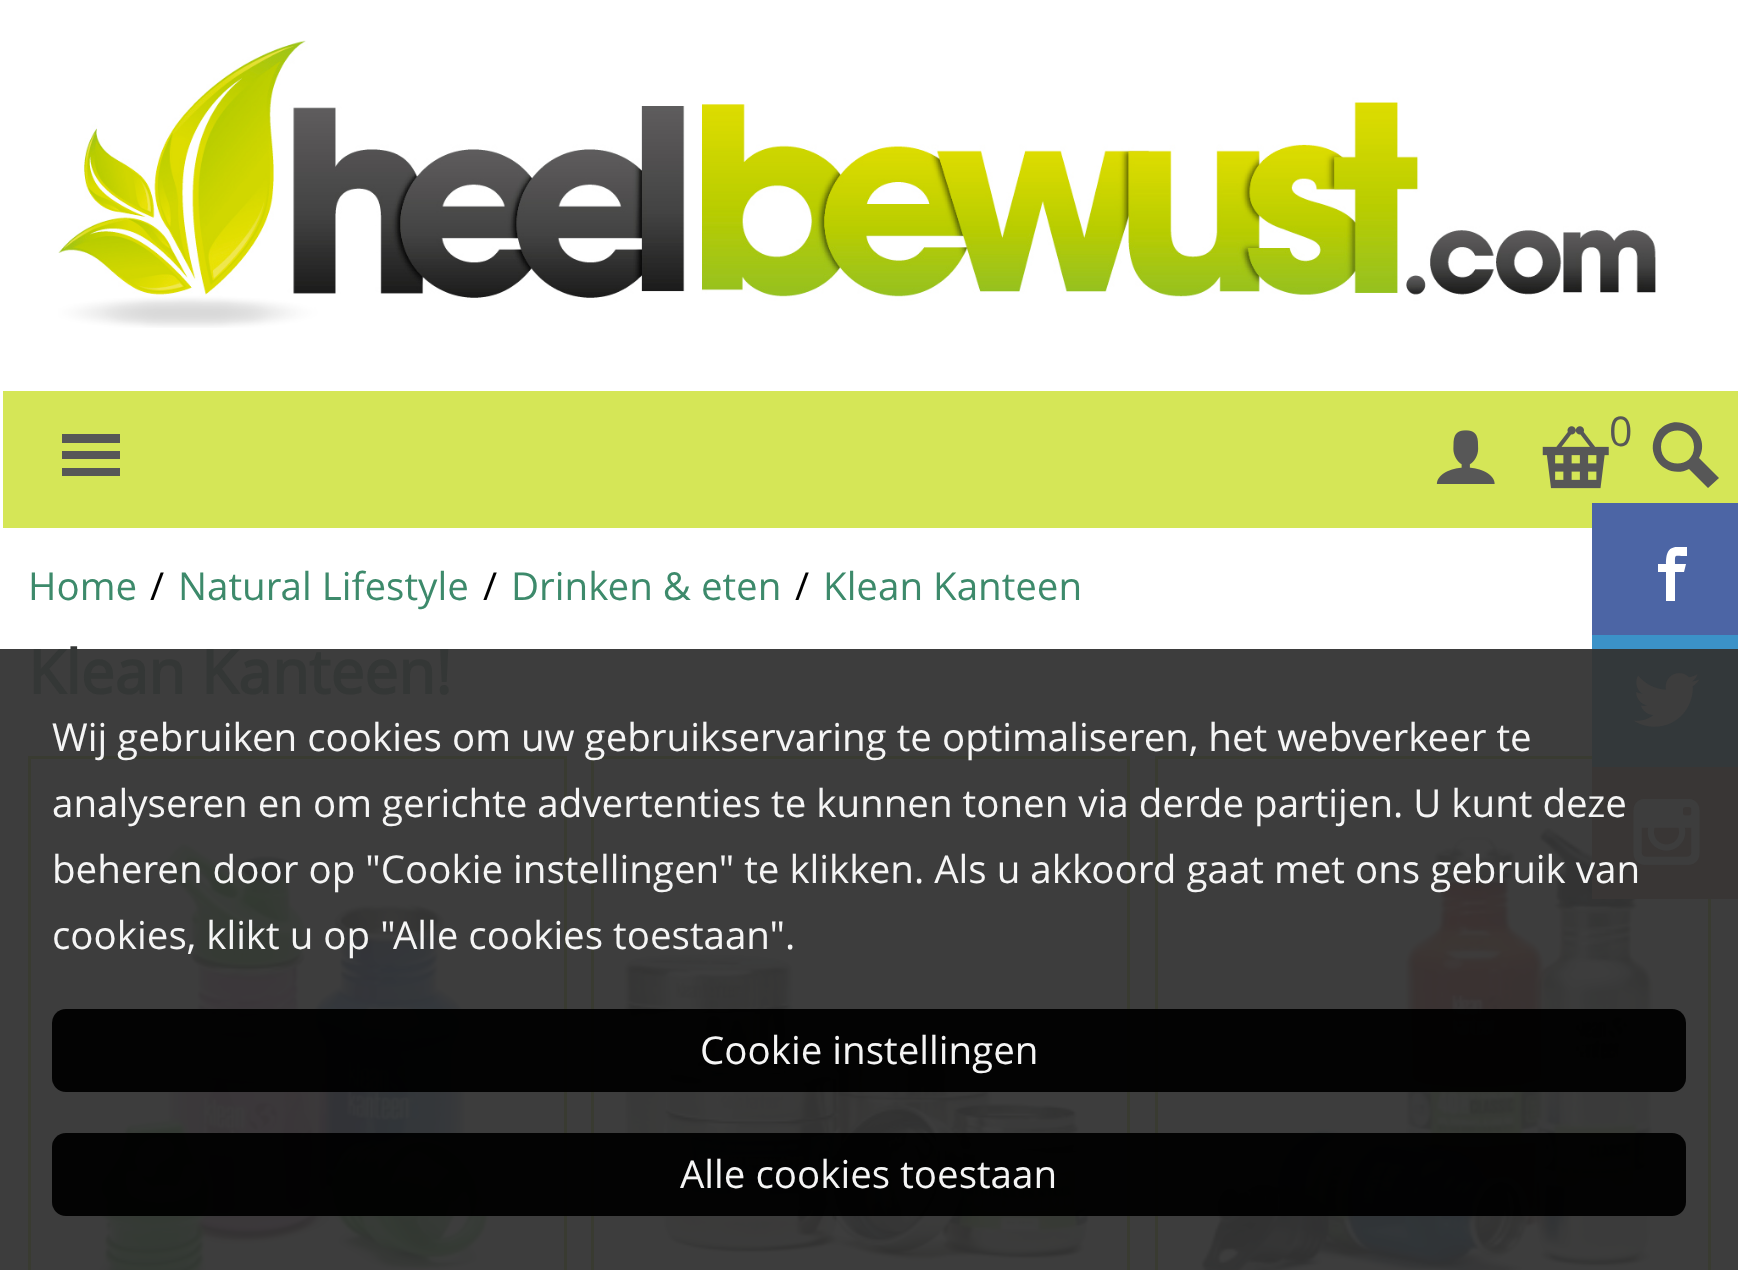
<svg xmlns="http://www.w3.org/2000/svg" width="1738" height="1270" viewBox="0 0 1738 1270">
  <rect width="100%" height="100%" fill="#ffffff"/>
  <rect x="0" y="649" width="1738" height="621" fill="#3d3d3d"/>
  <image x="58" y="40" width="1598" height="288" href="img1.png"/>
  <rect x="3" y="391" width="1735" height="137" fill="#d5e657"/>
  <path d="M62 434H120V443H62ZM62 451H120V459H62ZM62 468H120V476H62Z" fill="#575757"/>
  <image x="1436" y="430" width="59" height="54" href="img2.png"/>
  <image x="1542" y="426" width="67" height="63" href="img3.png"/>
  <text x="1609" y="446" font-family="Open Sans" font-size="41" fill="#575757">0</text>
  <path d="M1719 478L1699 458C1706 446 1701 431 1688 425C1682 422 1674 421 1668 424C1663 426 1658 430 1656 435C1644 457 1668 480 1689 469L1708 488ZM1661 447C1661 425 1694 425 1694 447C1694 469 1661 469 1661 447Z" fill="#575757"/>
  <text x="28" y="600" font-family="Open Sans" font-size="38.5" fill="#3d8a6b">Home</text>
  <text x="150" y="600" font-family="Open Sans" font-size="38.5" fill="#000000">/</text>
  <text x="178" y="600" font-family="Open Sans" font-size="38.5" fill="#3d8a6b">Natural Lifestyle</text>
  <text x="483" y="600" font-family="Open Sans" font-size="38.5" fill="#000000">/</text>
  <text x="511" y="600" font-family="Open Sans" font-size="38.5" fill="#3d8a6b">Drinken &amp; eten</text>
  <text x="795" y="600" font-family="Open Sans" font-size="38.5" fill="#000000">/</text>
  <text x="823" y="600" font-family="Open Sans" font-size="38.5" fill="#3d8a6b">Klean Kanteen</text>
  <text x="28" y="694" font-family="Open Sans" font-size="60.5" font-weight="bold" fill="#343736">Klean Kanteen!</text>
  <rect x="29.5" y="757.5" width="536" height="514" fill="none" stroke="#393b31" stroke-width="3"/>
  <image x="91" y="842" width="400" height="428" href="img4.png"/>
  <rect x="592.5" y="757.5" width="536" height="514" fill="none" stroke="#393b31" stroke-width="3"/>
  <image x="623" y="954" width="478" height="308" href="img5.png"/>
  <rect x="1156.5" y="757.5" width="553" height="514" fill="none" stroke="#393b31" stroke-width="3"/>
  <image x="1201" y="826" width="452" height="444" href="img6.png"/>
  <rect x="1592" y="503" width="146" height="132" fill="#4c65a5"/>
  <path d="M1677 547C1667 547 1666 556 1666 564H1658V572H1666V601H1675V572H1684L1686 564H1675C1675 553 1674 556 1687 556V547Z" fill="#ffffff"/>
  <rect x="1592" y="635" width="146" height="14" fill="#3b92c8"/>
  <rect x="1592" y="649" width="146" height="118" fill="#33383a"/>
  <image x="1633" y="673" width="67" height="54" href="img7.png"/>
  <rect x="1592" y="767" width="146" height="132" fill="#393635"/>
  <image x="1633" y="798" width="67" height="67" href="img8.png"/>
  <text x="52" y="751" font-family="Open Sans" font-size="38.5" fill="#f5f5f5">Wij gebruiken cookies om uw gebruikservaring te optimaliseren, het webverkeer te</text>
  <text x="52" y="817" font-family="Open Sans" font-size="38.5" fill="#f5f5f5">analyseren en om gerichte advertenties te kunnen tonen via derde partijen. U kunt deze</text>
  <text x="52" y="883" font-family="Open Sans" font-size="38.5" fill="#f5f5f5">beheren door op "Cookie instellingen" te klikken. Als u akkoord gaat met ons gebruik van</text>
  <text x="52" y="949" font-family="Open Sans" font-size="38.5" fill="#f5f5f5">cookies, klikt u op "Alle cookies toestaan".</text>
  <rect x="52" y="1009" width="1634" height="83" rx="14" fill="#000000" fill-opacity="0.95"/>
  <text x="700" y="1064" font-family="Open Sans" font-size="38.5" fill="#f5f5f5">Cookie instellingen</text>
  <rect x="52" y="1133" width="1634" height="83" rx="14" fill="#000000" fill-opacity="0.95"/>
  <text x="680" y="1188" font-family="Open Sans" font-size="38.5" fill="#f5f5f5">Alle cookies toestaan</text>
</svg>
